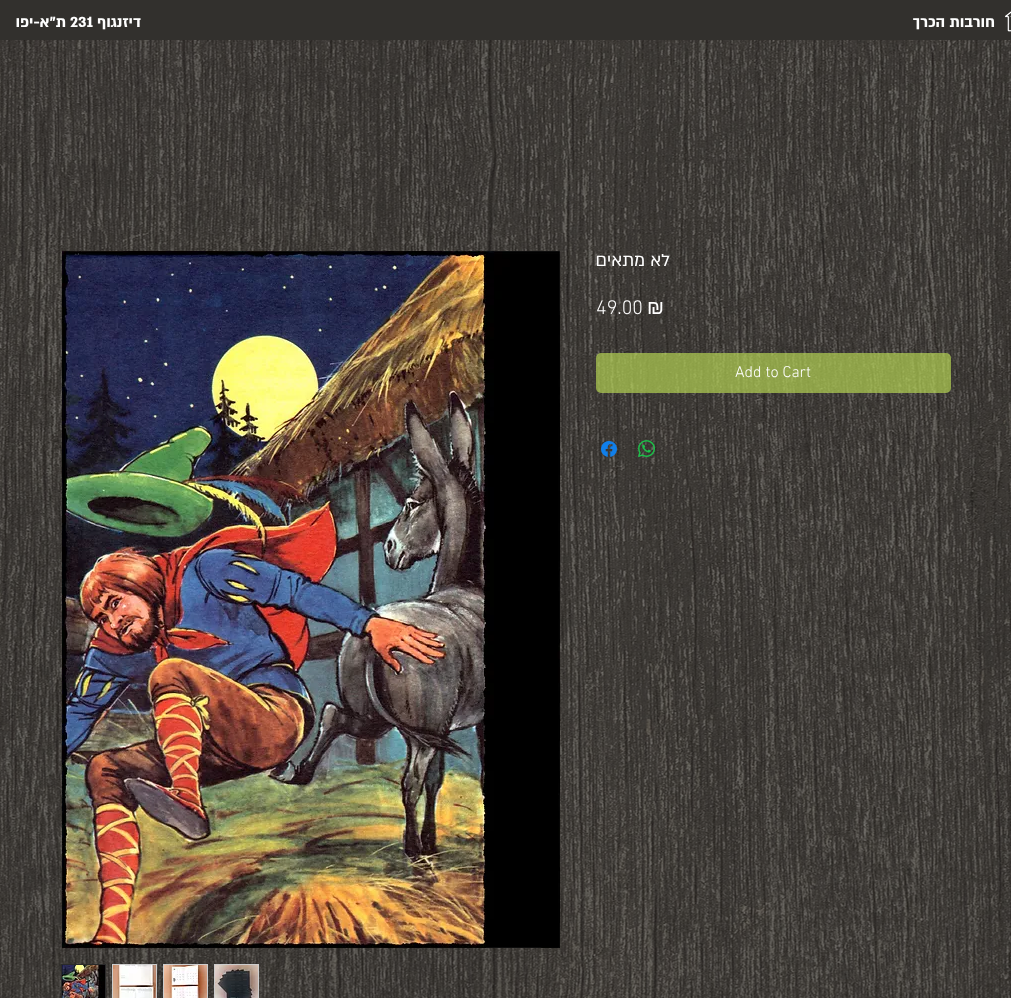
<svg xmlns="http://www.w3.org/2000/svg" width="1011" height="998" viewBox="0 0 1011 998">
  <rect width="100%" height="100%" fill="#32302d"/>
  <image x="1005" y="11" width="6" height="21" href="img1.png"/>
  <text x="995" y="27" font-family="'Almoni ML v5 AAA'" font-size="17" font-weight="bold" direction="rtl" fill="#ffffff">חורבות הכרך</text>
  <text x="141" y="27" font-family="'Almoni ML v5 AAA'" font-size="17" font-weight="bold" direction="rtl" fill="#ffffff">דיזנגוף</text>
  <text x="70" y="27" font-family="'Almoni ML v5 AAA'" font-size="17" font-weight="bold" fill="#ffffff">231</text>
  <text x="66" y="27" font-family="'Almoni ML v5 AAA'" font-size="17" font-weight="bold" direction="rtl" fill="#ffffff">ת"א-יפו</text>
  <image x="0" y="40" width="1011" height="958" href="img9.png"/>
  <text x="670" y="266" font-family="'Almoni ML v5 AAA'" font-size="20" direction="rtl" fill="#ffffff">לא מתאים</text>
  <text x="647" y="314" font-family="Liberation Sans" font-size="20" fill="#ffffff">₪</text>
  <text x="596" y="314" font-family="'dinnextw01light'" font-size="20" font-weight="300" fill="#ffffff">49.00</text>
  <rect x="596" y="353" width="355" height="40" rx="5" fill="#bada55" fill-opacity="0.66"/>
  <text x="735" y="377" font-family="'dinnextw01light'" font-size="16" font-weight="300" fill="#ffffff">Add to Cart</text>
  <image x="638" y="440" width="17" height="17" href="img2.png"/>
  <image x="601" y="441" width="16" height="16" href="img3.png"/>
  <image x="62" y="251" width="498" height="697" href="img4.png"/>
  <rect x="214" y="964" width="45" height="34" fill="#cccccc"/>
  <image x="215" y="965" width="43" height="33" href="img5.png"/>
  <rect x="163" y="964" width="45" height="34" fill="#cccccc"/>
  <image x="164" y="965" width="43" height="33" href="img6.png"/>
  <rect x="112" y="964" width="45" height="34" fill="#cccccc"/>
  <image x="113" y="965" width="43" height="33" href="img7.png"/>
  <rect x="61.5" y="964.5" width="44" height="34" fill="none" stroke="#2a2a2a"/>
  <image x="62" y="965" width="43" height="33" href="img8.png"/>
</svg>
